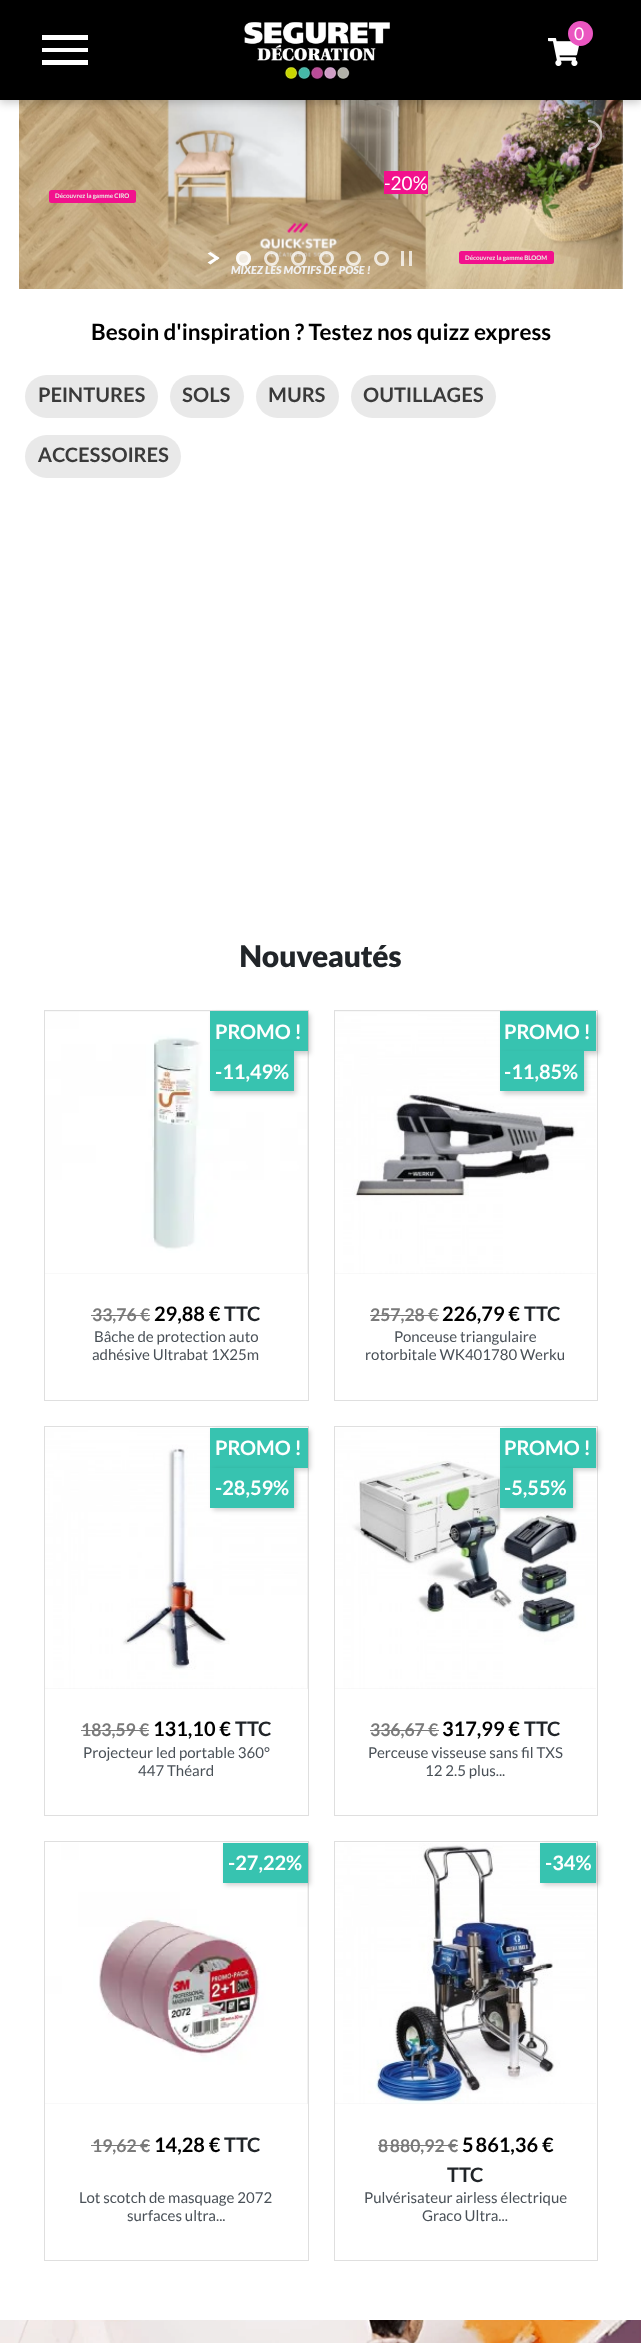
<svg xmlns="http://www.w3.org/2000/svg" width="641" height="2343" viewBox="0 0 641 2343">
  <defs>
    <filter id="blur1" x="-50%" y="-200%" width="200%" height="500%"><feGaussianBlur stdDeviation="4"/></filter>
    <clipPath id="clip1"><rect x="573" y="120" width="15" height="30"/></clipPath>
    <clipPath id="clip2"><path d="M588 120L602.5 120.5L602 150H587Z"/></clipPath>
    <clipPath id="clip3"><rect x="588" y="120" width="15" height="30"/></clipPath>
    <filter id="blur2" x="-50%" y="-200%" width="200%" height="500%"><feGaussianBlur stdDeviation="2.5"/></filter>
  </defs>
  <rect width="100%" height="100%" fill="#ffffff"/>
  <image x="19" y="100" width="604" height="189" href="img3.png"/>
  <rect x="0" y="3" width="641" height="100" fill="#000000" fill-opacity="0.2" filter="url(#blur1)"/>
  <rect x="0" y="0" width="641" height="100" fill="#000000"/>
  <path d="M42 35H88V40H42ZM42 52V48H88V52ZM42 65V60H88V65Z" fill="#ffffff"/>
  <image x="244" y="21" width="146" height="58" href="img1.png"/>
  <image x="548" y="38" width="32" height="28" href="img2.png"/>
  <circle cx="580.5" cy="33.5" r="12.5" fill="#eb56c1"/>
  <text x="574" y="40" font-family="Lato" font-size="17.5" fill="#ffffff">0</text>
  <circle cx="588" cy="135" r="13.5" fill="none" stroke="#000000" stroke-opacity="0.13" stroke-width="3"/>
  <g clip-path="url(#clip1)">
    <g clip-path="url(#clip2)">
      <path d="M587.5 121.5C606 121.5 605.5 149 587.5 148.5C569 148.5 569.5 121 587.5 121.5Z" fill="none" stroke="#ffffff" stroke-opacity="0.65" stroke-width="2.5"/>
    </g>
  </g>
  <g clip-path="url(#clip3)">
    <path d="M587.5 149C569.5 149 569.5 121 587.5 121C605.5 121 605.5 149 587.5 149Z" fill="none" stroke="#ffffff" stroke-opacity="0.65" stroke-width="2.5"/>
  </g>
  <rect x="384" y="171" width="44" height="23" fill="#f2118d"/>
  <text x="384" y="190" font-family="Lato" font-size="19" fill="#ffffff">-20%</text>
  <rect x="49" y="190" width="87" height="13" rx="2.5" fill="#f2118d"/>
  <text x="55" y="198" font-family="Lato" font-size="6.25" font-weight="bold" fill="#ebe9e2">Découvrez la gamme CIRO</text>
  <rect x="459" y="251" width="95" height="13" rx="2.5" fill="#f2118d"/>
  <text x="465" y="260" font-family="Lato" font-size="6.25" font-weight="bold" fill="#ebe9e2">Découvrez la gamme BLOOM</text>
  <text x="231" y="274" font-family="Lato" font-size="11" font-weight="900" font-style="italic" fill="#f0f0f0">MIXEZ LES MOTIFS DE POSE !</text>
  <path d="M210.5 252L219.5 258L217 260L207.5 253.5Z" fill="#ffffff"/>
  <path d="M217 256.5L219.5 258L210.5 264.5L207.5 262.5Z" fill="#ffffff"/>
  <circle cx="243.5" cy="258.5" r="7.5" fill="#ffffff" fill-opacity="0.75"/>
  <circle cx="243.5" cy="258.5" r="6" fill="none" stroke="#ffffff" stroke-opacity="0.75" stroke-width="3"/>
  <circle cx="271.5" cy="258.5" r="6" fill="none" stroke="#ffffff" stroke-opacity="0.75" stroke-width="3"/>
  <circle cx="298.5" cy="258.5" r="6" fill="none" stroke="#ffffff" stroke-opacity="0.75" stroke-width="3"/>
  <circle cx="326.5" cy="258.5" r="6" fill="none" stroke="#ffffff" stroke-opacity="0.75" stroke-width="3"/>
  <circle cx="353.5" cy="258.5" r="6" fill="none" stroke="#ffffff" stroke-opacity="0.75" stroke-width="3"/>
  <circle cx="381.5" cy="258.5" r="6" fill="none" stroke="#ffffff" stroke-opacity="0.75" stroke-width="3"/>
  <rect x="409" y="251" width="3" height="15" fill="#ffffff" fill-opacity="0.75"/>
  <rect x="401" y="251" width="3" height="15" fill="#ffffff" fill-opacity="0.75"/>
  <text x="91" y="340" font-family="Lato" font-size="22.5" font-weight="bold" fill="#000000">Besoin d'inspiration ? Testez nos quizz express</text>
  <rect x="25" y="375" width="133" height="43" rx="21.5" fill="#e9e9e9"/>
  <text x="38" y="402" font-family="'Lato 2'" font-size="20" font-weight="bold" fill="#3a3a3a">PEINTURES</text>
  <rect x="170" y="375" width="74" height="43" rx="21.5" fill="#e9e9e9"/>
  <text x="182" y="402" font-family="'Lato 2'" font-size="20" font-weight="bold" fill="#3a3a3a">SOLS</text>
  <rect x="256" y="375" width="83" height="43" rx="21.5" fill="#e9e9e9"/>
  <text x="268" y="402" font-family="'Lato 2'" font-size="20" font-weight="bold" fill="#3a3a3a">MURS</text>
  <rect x="351" y="375" width="145" height="43" rx="21.5" fill="#e9e9e9"/>
  <text x="363" y="402" font-family="'Lato 2'" font-size="20" font-weight="bold" fill="#3a3a3a">OUTILLAGES</text>
  <rect x="25" y="435" width="156" height="43" rx="21.5" fill="#e9e9e9"/>
  <text x="38" y="462" font-family="'Lato 2'" font-size="20" font-weight="bold" fill="#3a3a3a">ACCESSOIRES</text>
  <text x="239" y="967" font-family="Lato" font-size="30" font-weight="900" fill="#212529">Nouveautés</text>
  <rect x="44.5" y="1010.5" width="264" height="390" fill="none" stroke="#dfdfdf"/>
  <rect x="45" y="1011" width="263" height="263" fill="#f2f2f2"/>
  <image x="45" y="1011" width="262" height="263" href="img4.png"/>
  <rect x="213" y="1014" width="97" height="40" fill="#000000" fill-opacity="0.2" filter="url(#blur2)"/>
  <rect x="210" y="1011" width="98" height="40" fill="#37c3b0"/>
  <text x="215" y="1039" font-family="Lato" font-size="20" font-weight="bold" fill="#ffffff">PROMO !</text>
  <rect x="213" y="1054" width="83" height="40" fill="#000000" fill-opacity="0.2" filter="url(#blur2)"/>
  <rect x="210" y="1051" width="84" height="40" fill="#37c3b0"/>
  <text x="215" y="1079" font-family="Lato" font-size="20" font-weight="bold" fill="#ffffff">-11,49%</text>
  <text x="92" y="1321" font-family="Lato" font-size="17.5" font-weight="bold" fill="#7a7a7a">33,76 €</text>
  <rect x="91" y="1315" width="59" height="1" fill="#7a7a7a"/>
  <text x="154" y="1321" font-family="Lato" font-size="20" font-weight="bold" fill="#000000">29,88 €</text>
  <text x="224" y="1321" font-family="Lato" font-size="20" font-weight="bold" fill="#212529">TTC</text>
  <text x="94" y="1342" font-family="Lato" font-size="15" fill="#495057">Bâche de protection auto</text>
  <text x="92" y="1360" font-family="Lato" font-size="15" fill="#495057">adhésive Ultrabat 1X25m</text>
  <rect x="334.5" y="1010.5" width="263" height="390" fill="none" stroke="#dfdfdf"/>
  <rect x="335" y="1011" width="261" height="263" fill="#f2f2f2"/>
  <image x="335" y="1011" width="261" height="263" href="img5.png"/>
  <rect x="503" y="1014" width="96" height="40" fill="#000000" fill-opacity="0.2" filter="url(#blur2)"/>
  <rect x="500" y="1011" width="96" height="40" fill="#37c3b0"/>
  <text x="504" y="1039" font-family="Lato" font-size="20" font-weight="bold" fill="#ffffff">PROMO !</text>
  <rect x="503" y="1054" width="83" height="40" fill="#000000" fill-opacity="0.2" filter="url(#blur2)"/>
  <rect x="500" y="1051" width="84" height="40" fill="#37c3b0"/>
  <text x="504" y="1079" font-family="Lato" font-size="20" font-weight="bold" fill="#ffffff">-11,85%</text>
  <text x="370" y="1321" font-family="Lato" font-size="17.5" font-weight="bold" fill="#7a7a7a">257,28 €</text>
  <rect x="370" y="1315" width="69" height="1" fill="#7a7a7a"/>
  <text x="442" y="1321" font-family="Lato" font-size="20" font-weight="bold" fill="#000000">226,79 €</text>
  <text x="524" y="1321" font-family="Lato" font-size="20" font-weight="bold" fill="#212529">TTC</text>
  <text x="394" y="1342" font-family="Lato" font-size="15" fill="#495057">Ponceuse triangulaire</text>
  <text x="365" y="1360" font-family="Lato" font-size="15" fill="#495057">rotorbitale WK401780 Werku</text>
  <rect x="44.5" y="1426.5" width="264" height="389" fill="none" stroke="#dfdfdf"/>
  <rect x="45" y="1468" width="263" height="221" fill="#f2f2f2"/>
  <image x="45" y="1428" width="262" height="261" href="img6.png"/>
  <rect x="213" y="1430" width="97" height="40" fill="#000000" fill-opacity="0.2" filter="url(#blur2)"/>
  <rect x="210" y="1428" width="98" height="40" fill="#37c3b0"/>
  <text x="215" y="1455" font-family="Lato" font-size="20" font-weight="bold" fill="#ffffff">PROMO !</text>
  <rect x="213" y="1470" width="83" height="40" fill="#000000" fill-opacity="0.2" filter="url(#blur2)"/>
  <rect x="210" y="1468" width="84" height="40" fill="#37c3b0"/>
  <text x="215" y="1495" font-family="Lato" font-size="20" font-weight="bold" fill="#ffffff">-28,59%</text>
  <text x="81" y="1736" font-family="Lato" font-size="17.5" font-weight="bold" fill="#7a7a7a">183,59 €</text>
  <rect x="81" y="1730" width="68" height="1" fill="#7a7a7a"/>
  <text x="153" y="1736" font-family="Lato" font-size="20" font-weight="bold" fill="#000000">131,10 €</text>
  <text x="235" y="1736" font-family="Lato" font-size="20" font-weight="bold" fill="#212529">TTC</text>
  <text x="83" y="1758" font-family="Lato" font-size="15" fill="#495057">Projecteur led portable 360°</text>
  <text x="138" y="1776" font-family="Lato" font-size="15" fill="#495057">447 Théard</text>
  <rect x="334.5" y="1426.5" width="263" height="389" fill="none" stroke="#dfdfdf"/>
  <rect x="335" y="1688" width="261" height="1" fill="#f2f2f2"/>
  <image x="335" y="1428" width="261" height="261" href="img7.png"/>
  <rect x="503" y="1430" width="96" height="40" fill="#000000" fill-opacity="0.2" filter="url(#blur2)"/>
  <rect x="500" y="1428" width="96" height="40" fill="#37c3b0"/>
  <text x="504" y="1455" font-family="Lato" font-size="20" font-weight="bold" fill="#ffffff">PROMO !</text>
  <rect x="503" y="1470" width="72" height="40" fill="#000000" fill-opacity="0.2" filter="url(#blur2)"/>
  <rect x="500" y="1468" width="73" height="40" fill="#37c3b0"/>
  <text x="504" y="1495" font-family="Lato" font-size="20" font-weight="bold" fill="#ffffff">-5,55%</text>
  <text x="370" y="1736" font-family="Lato" font-size="17.5" font-weight="bold" fill="#7a7a7a">336,67 €</text>
  <rect x="370" y="1730" width="69" height="1" fill="#7a7a7a"/>
  <text x="442" y="1736" font-family="Lato" font-size="20" font-weight="bold" fill="#000000">317,99 €</text>
  <text x="524" y="1736" font-family="Lato" font-size="20" font-weight="bold" fill="#212529">TTC</text>
  <text x="368" y="1758" font-family="Lato" font-size="15" fill="#495057">Perceuse visseuse sans fil TXS</text>
  <text x="425" y="1776" font-family="Lato" font-size="15" fill="#495057">12 2.5 plus...</text>
  <rect x="44.5" y="1841.5" width="264" height="419" fill="none" stroke="#dfdfdf"/>
  <rect x="45" y="1883" width="263" height="221" fill="#f2f2f2"/>
  <image x="45" y="1843" width="262" height="261" href="img8.png"/>
  <rect x="225" y="1845" width="85" height="40" fill="#000000" fill-opacity="0.2" filter="url(#blur2)"/>
  <rect x="223" y="1843" width="85" height="40" fill="#37c3b0"/>
  <text x="228" y="1870" font-family="Lato" font-size="20" font-weight="bold" fill="#ffffff">-27,22%</text>
  <text x="92" y="2152" font-family="Lato" font-size="17.5" font-weight="bold" fill="#7a7a7a">19,62 €</text>
  <rect x="91" y="2145" width="59" height="1" fill="#7a7a7a"/>
  <text x="154" y="2152" font-family="Lato" font-size="20" font-weight="bold" fill="#000000">14,28 €</text>
  <text x="224" y="2152" font-family="Lato" font-size="20" font-weight="bold" fill="#212529">TTC</text>
  <text x="79" y="2203" font-family="Lato" font-size="15" fill="#495057">Lot scotch de masquage 2072</text>
  <text x="127" y="2221" font-family="Lato" font-size="15" fill="#495057">surfaces ultra...</text>
  <rect x="334.5" y="1841.5" width="263" height="419" fill="none" stroke="#dfdfdf"/>
  <rect x="335" y="2103" width="261" height="1" fill="#f2f2f2"/>
  <image x="335" y="1843" width="261" height="261" href="img9.png"/>
  <rect x="543" y="1845" width="56" height="40" fill="#000000" fill-opacity="0.2" filter="url(#blur2)"/>
  <rect x="540" y="1843" width="56" height="40" fill="#37c3b0"/>
  <text x="545" y="1870" font-family="Lato" font-size="20" font-weight="bold" fill="#ffffff">-34%</text>
  <text x="378" y="2152" font-family="Lato" font-size="17.5" font-weight="bold" fill="#7a7a7a">8 880,92 €</text>
  <rect x="378" y="2145" width="80" height="1" fill="#7a7a7a"/>
  <text x="462" y="2152" font-family="Lato" font-size="20" font-weight="bold" fill="#000000">5 861,36 €</text>
  <text x="447" y="2182" font-family="Lato" font-size="20" font-weight="bold" fill="#212529">TTC</text>
  <text x="364" y="2203" font-family="Lato" font-size="15" fill="#495057">Pulvérisateur airless électrique</text>
  <text x="422" y="2221" font-family="Lato" font-size="15" fill="#495057">Graco Ultra...</text>
  <image x="0" y="2320" width="641" height="23" href="img10.png"/>
</svg>
